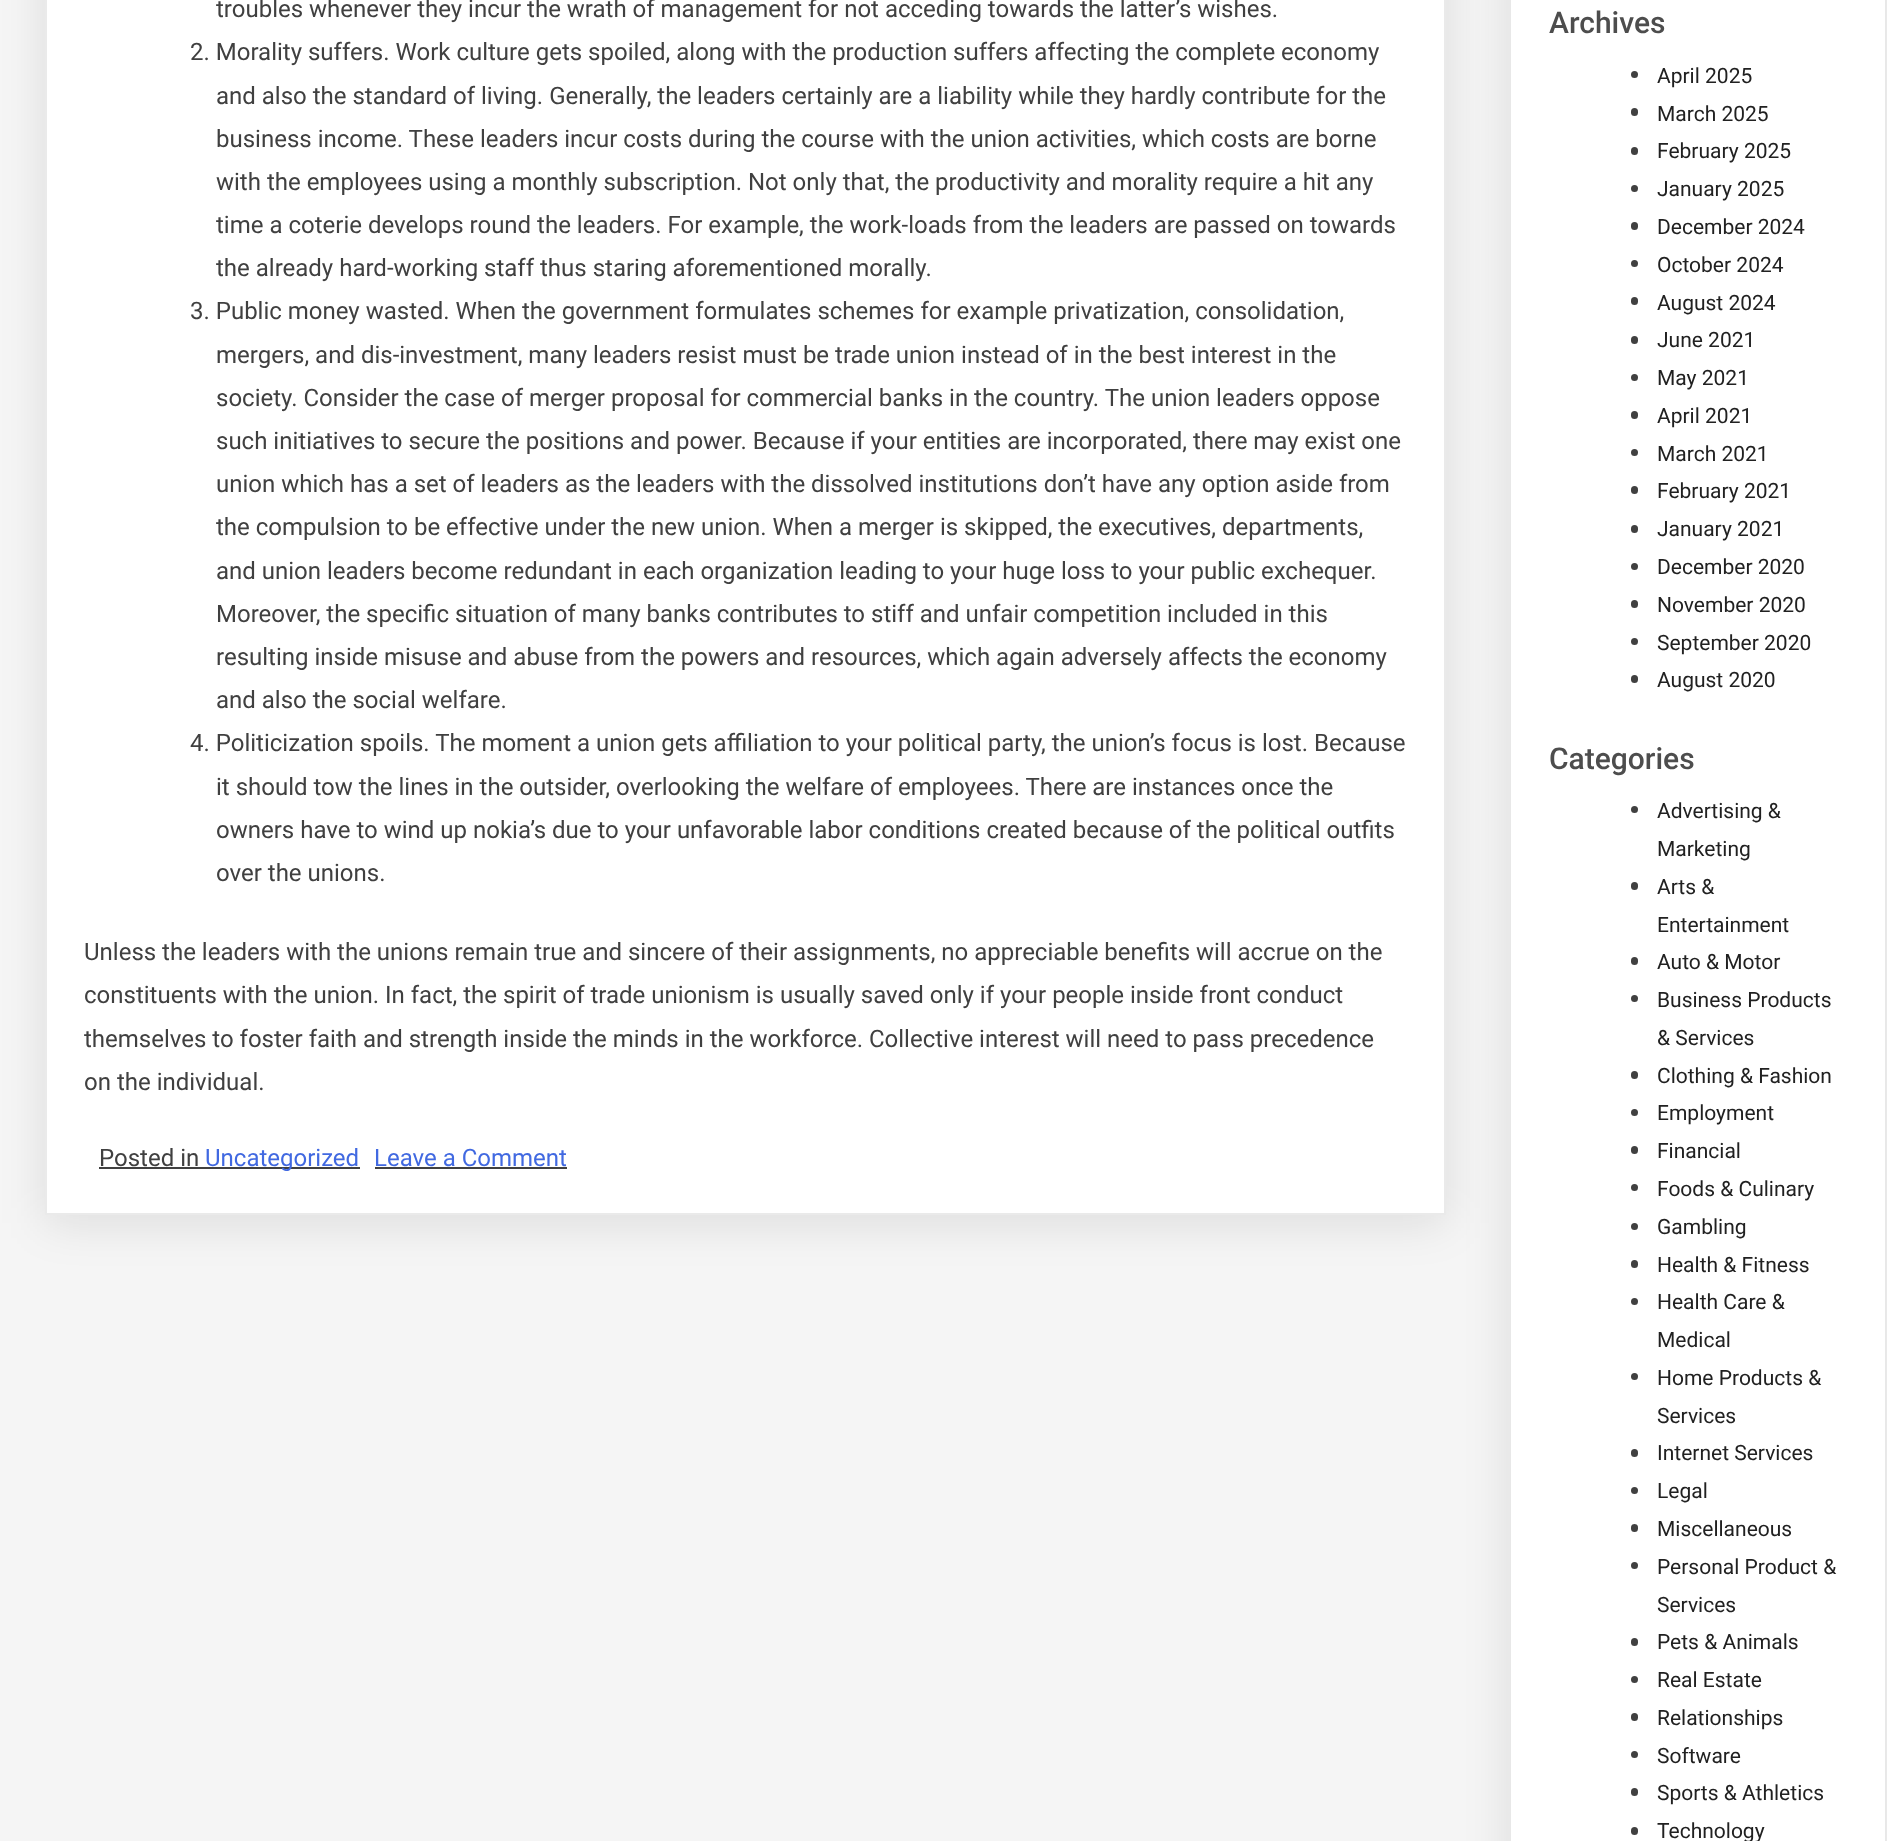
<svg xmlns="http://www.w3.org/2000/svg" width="1887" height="1841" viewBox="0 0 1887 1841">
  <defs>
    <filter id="blur1" x="-50%" y="-200%" width="200%" height="500%"><feGaussianBlur stdDeviation="22.5"/></filter>
  </defs>
  <rect width="100%" height="100%" fill="#f5f5f5"/>
  <rect x="45" y="-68" width="1401" height="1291" fill="#000000" fill-opacity="0.1" filter="url(#blur1)"/>
  <rect x="46" y="-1" width="1399" height="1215" fill="#ffffff" stroke="#eaeaea" stroke-width="2"/>
  <text x="216" y="17" font-family="Roboto" font-size="24" fill="#404040">troubles whenever they incur the wrath of management for not acceding towards the latter’s wishes.</text>
  <text x="190" y="60" font-family="Roboto" font-size="24" fill="#404040">2. Morality suffers. Work culture gets spoiled, along with the production suffers affecting the complete economy</text>
  <text x="216" y="104" font-family="Roboto" font-size="24" fill="#404040">and also the standard of living. Generally, the leaders certainly are a liability while they hardly contribute for the</text>
  <text x="216" y="147" font-family="Roboto" font-size="24" fill="#404040">business income. These leaders incur costs during the course with the union activities, which costs are borne</text>
  <text x="216" y="190" font-family="Roboto" font-size="24" fill="#404040">with the employees using a monthly subscription. Not only that, the productivity and morality require a hit any</text>
  <text x="216" y="233" font-family="Roboto" font-size="24" fill="#404040">time a coterie develops round the leaders. For example, the work-loads from the leaders are passed on towards</text>
  <text x="216" y="276" font-family="Roboto" font-size="24" fill="#404040">the already hard-working staff thus staring aforementioned morally.</text>
  <text x="190" y="319" font-family="Roboto" font-size="24" fill="#404040">3. Public money wasted. When the government formulates schemes for example privatization, consolidation,</text>
  <text x="216" y="363" font-family="Roboto" font-size="24" fill="#404040">mergers, and dis-investment, many leaders resist must be trade union instead of in the best interest in the</text>
  <text x="216" y="406" font-family="Roboto" font-size="24" fill="#404040">society. Consider the case of merger proposal for commercial banks in the country. The union leaders oppose</text>
  <text x="216" y="449" font-family="Roboto" font-size="24" fill="#404040">such initiatives to secure the positions and power. Because if your entities are incorporated, there may exist one</text>
  <text x="216" y="492" font-family="Roboto" font-size="24" fill="#404040">union which has a set of leaders as the leaders with the dissolved institutions don’t have any option aside from</text>
  <text x="216" y="535" font-family="Roboto" font-size="24" fill="#404040">the compulsion to be effective under the new union. When a merger is skipped, the executives, departments,</text>
  <text x="216" y="579" font-family="Roboto" font-size="24" fill="#404040">and union leaders become redundant in each organization leading to your huge loss to your public exchequer.</text>
  <text x="216" y="622" font-family="Roboto" font-size="24" fill="#404040">Moreover, the specific situation of many banks contributes to stiff and unfair competition included in this</text>
  <text x="216" y="665" font-family="Roboto" font-size="24" fill="#404040">resulting inside misuse and abuse from the powers and resources, which again adversely affects the economy</text>
  <text x="216" y="708" font-family="Roboto" font-size="24" fill="#404040">and also the social welfare.</text>
  <text x="190" y="751" font-family="Roboto" font-size="24" fill="#404040">4. Politicization spoils. The moment a union gets affiliation to your political party, the union’s focus is lost. Because</text>
  <text x="216" y="795" font-family="Roboto" font-size="24" fill="#404040">it should tow the lines in the outsider, overlooking the welfare of employees. There are instances once the</text>
  <text x="216" y="838" font-family="Roboto" font-size="24" fill="#404040">owners have to wind up nokia’s due to your unfavorable labor conditions created because of the political outfits</text>
  <text x="216" y="881" font-family="Roboto" font-size="24" fill="#404040">over the unions.</text>
  <text x="84" y="960" font-family="Roboto" font-size="24" fill="#404040">Unless the leaders with the unions remain true and sincere of their assignments, no appreciable benefits will accrue on the</text>
  <text x="84" y="1003" font-family="Roboto" font-size="24" fill="#404040">constituents with the union. In fact, the spirit of trade unionism is usually saved only if your people inside front conduct</text>
  <text x="84" y="1047" font-family="Roboto" font-size="24" fill="#404040">themselves to foster faith and strength inside the minds in the workforce. Collective interest will need to pass precedence</text>
  <text x="84" y="1090" font-family="Roboto" font-size="24" fill="#404040">on the individual.</text>
  <text x="99" y="1166" font-family="Roboto" font-size="24" fill="#404040">Posted in</text>
  <rect x="99" y="1167" width="261" height="2" fill="#404040"/>
  <text x="205" y="1166" font-family="Roboto" font-size="24" fill="#4169e1">Uncategorized</text>
  <text x="374" y="1166" font-family="Roboto" font-size="24" fill="#4169e1">Leave a Comment</text>
  <rect x="375" y="1167" width="192" height="2" fill="#404040"/>
  <rect x="1509" y="-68" width="378" height="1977" fill="#000000" fill-opacity="0.1" filter="url(#blur1)"/>
  <rect x="1511" y="0" width="374" height="1841" fill="#ffffff"/>
  <text x="1549" y="33" font-family="Roboto" font-size="30" font-weight="500" fill="#4d4d4d">Archives</text>
  <circle cx="1634.5" cy="74.5" r="3.5" fill="#404040"/>
  <text x="1657" y="83" font-family="Roboto" font-size="21" fill="#212121">April 2025</text>
  <rect x="1631" y="108" width="7" height="8" rx="3.5" fill="#404040"/>
  <text x="1657" y="121" font-family="Roboto" font-size="21" fill="#212121">March 2025</text>
  <rect x="1631" y="147" width="7" height="8" rx="3.5" fill="#404040"/>
  <text x="1657" y="158" font-family="Roboto" font-size="21" fill="#212121">February 2025</text>
  <circle cx="1634.5" cy="188.5" r="3.5" fill="#404040"/>
  <text x="1657" y="196" font-family="Roboto" font-size="21" fill="#212121">January 2025</text>
  <rect x="1631" y="222" width="7" height="8" rx="3.5" fill="#404040"/>
  <text x="1657" y="234" font-family="Roboto" font-size="21" fill="#212121">December 2024</text>
  <circle cx="1634.5" cy="263.5" r="3.5" fill="#404040"/>
  <text x="1657" y="272" font-family="Roboto" font-size="21" fill="#212121">October 2024</text>
  <rect x="1631" y="297" width="7" height="8" rx="3.5" fill="#404040"/>
  <text x="1657" y="310" font-family="Roboto" font-size="21" fill="#212121">August 2024</text>
  <rect x="1631" y="336" width="7" height="8" rx="3.5" fill="#404040"/>
  <text x="1657" y="347" font-family="Roboto" font-size="21" fill="#212121">June 2021</text>
  <circle cx="1634.5" cy="377.5" r="3.5" fill="#404040"/>
  <text x="1657" y="385" font-family="Roboto" font-size="21" fill="#212121">May 2021</text>
  <rect x="1631" y="411" width="7" height="8" rx="3.5" fill="#404040"/>
  <text x="1657" y="423" font-family="Roboto" font-size="21" fill="#212121">April 2021</text>
  <circle cx="1634.5" cy="452.5" r="3.5" fill="#404040"/>
  <text x="1657" y="461" font-family="Roboto" font-size="21" fill="#212121">March 2021</text>
  <rect x="1631" y="486" width="7" height="8" rx="3.5" fill="#404040"/>
  <text x="1657" y="498" font-family="Roboto" font-size="21" fill="#212121">February 2021</text>
  <rect x="1631" y="525" width="7" height="8" rx="3.5" fill="#404040"/>
  <text x="1657" y="536" font-family="Roboto" font-size="21" fill="#212121">January 2021</text>
  <circle cx="1634.5" cy="566.5" r="3.5" fill="#404040"/>
  <text x="1657" y="574" font-family="Roboto" font-size="21" fill="#212121">December 2020</text>
  <rect x="1631" y="600" width="7" height="8" rx="3.5" fill="#404040"/>
  <text x="1657" y="612" font-family="Roboto" font-size="21" fill="#212121">November 2020</text>
  <circle cx="1634.5" cy="641.5" r="3.5" fill="#404040"/>
  <text x="1657" y="650" font-family="Roboto" font-size="21" fill="#212121">September 2020</text>
  <rect x="1631" y="675" width="7" height="8" rx="3.5" fill="#404040"/>
  <text x="1657" y="687" font-family="Roboto" font-size="21" fill="#212121">August 2020</text>
  <text x="1549" y="769" font-family="Roboto" font-size="30" font-weight="500" fill="#4d4d4d">Categories</text>
  <circle cx="1634.5" cy="809.5" r="3.5" fill="#404040"/>
  <text x="1657" y="818" font-family="Roboto" font-size="21" fill="#212121">Advertising &amp;</text>
  <text x="1657" y="856" font-family="Roboto" font-size="21" fill="#212121">Marketing</text>
  <rect x="1631" y="882" width="7" height="8" rx="3.5" fill="#404040"/>
  <text x="1657" y="894" font-family="Roboto" font-size="21" fill="#212121">Arts &amp;</text>
  <text x="1657" y="932" font-family="Roboto" font-size="21" fill="#212121">Entertainment</text>
  <rect x="1631" y="957" width="7" height="8" rx="3.5" fill="#404040"/>
  <text x="1657" y="969" font-family="Roboto" font-size="21" fill="#212121">Auto &amp; Motor</text>
  <circle cx="1634.5" cy="998.5" r="3.5" fill="#404040"/>
  <text x="1657" y="1007" font-family="Roboto" font-size="21" fill="#212121">Business Products</text>
  <text x="1657" y="1045" font-family="Roboto" font-size="21" fill="#212121">&amp; Services</text>
  <rect x="1631" y="1071" width="7" height="8" rx="3.5" fill="#404040"/>
  <text x="1657" y="1083" font-family="Roboto" font-size="21" fill="#212121">Clothing &amp; Fashion</text>
  <circle cx="1634.5" cy="1112.5" r="3.5" fill="#404040"/>
  <text x="1657" y="1120" font-family="Roboto" font-size="21" fill="#212121">Employment</text>
  <rect x="1631" y="1146" width="7" height="8" rx="3.5" fill="#404040"/>
  <text x="1657" y="1158" font-family="Roboto" font-size="21" fill="#212121">Financial</text>
  <circle cx="1634.5" cy="1187.5" r="3.5" fill="#404040"/>
  <text x="1657" y="1196" font-family="Roboto" font-size="21" fill="#212121">Foods &amp; Culinary</text>
  <circle cx="1634.5" cy="1226.5" r="3.5" fill="#404040"/>
  <text x="1657" y="1234" font-family="Roboto" font-size="21" fill="#212121">Gambling</text>
  <rect x="1631" y="1260" width="7" height="8" rx="3.5" fill="#404040"/>
  <text x="1657" y="1272" font-family="Roboto" font-size="21" fill="#212121">Health &amp; Fitness</text>
  <circle cx="1634.5" cy="1301.5" r="3.5" fill="#404040"/>
  <text x="1657" y="1309" font-family="Roboto" font-size="21" fill="#212121">Health Care &amp;</text>
  <text x="1657" y="1347" font-family="Roboto" font-size="21" fill="#212121">Medical</text>
  <circle cx="1634.5" cy="1376.5" r="3.5" fill="#404040"/>
  <text x="1657" y="1385" font-family="Roboto" font-size="21" fill="#212121">Home Products &amp;</text>
  <text x="1657" y="1423" font-family="Roboto" font-size="21" fill="#212121">Services</text>
  <rect x="1631" y="1449" width="7" height="8" rx="3.5" fill="#404040"/>
  <text x="1657" y="1460" font-family="Roboto" font-size="21" fill="#212121">Internet Services</text>
  <circle cx="1634.5" cy="1490.5" r="3.5" fill="#404040"/>
  <text x="1657" y="1498" font-family="Roboto" font-size="21" fill="#212121">Legal</text>
  <rect x="1631" y="1524" width="7" height="8" rx="3.5" fill="#404040"/>
  <text x="1657" y="1536" font-family="Roboto" font-size="21" fill="#212121">Miscellaneous</text>
  <circle cx="1634.5" cy="1565.5" r="3.5" fill="#404040"/>
  <text x="1657" y="1574" font-family="Roboto" font-size="21" fill="#212121">Personal Product &amp;</text>
  <text x="1657" y="1612" font-family="Roboto" font-size="21" fill="#212121">Services</text>
  <rect x="1631" y="1638" width="7" height="8" rx="3.5" fill="#404040"/>
  <text x="1657" y="1649" font-family="Roboto" font-size="21" fill="#212121">Pets &amp; Animals</text>
  <circle cx="1634.5" cy="1679.5" r="3.5" fill="#404040"/>
  <text x="1657" y="1687" font-family="Roboto" font-size="21" fill="#212121">Real Estate</text>
  <rect x="1631" y="1713" width="7" height="8" rx="3.5" fill="#404040"/>
  <text x="1657" y="1725" font-family="Roboto" font-size="21" fill="#212121">Relationships</text>
  <circle cx="1634.5" cy="1754.5" r="3.5" fill="#404040"/>
  <text x="1657" y="1763" font-family="Roboto" font-size="21" fill="#212121">Software</text>
  <rect x="1631" y="1788" width="7" height="8" rx="3.5" fill="#404040"/>
  <text x="1657" y="1800" font-family="Roboto" font-size="21" fill="#212121">Sports &amp; Athletics</text>
  <rect x="1631" y="1827" width="7" height="8" rx="3.5" fill="#404040"/>
  <text x="1657" y="1838" font-family="Roboto" font-size="21" fill="#212121">Technology</text>
</svg>
